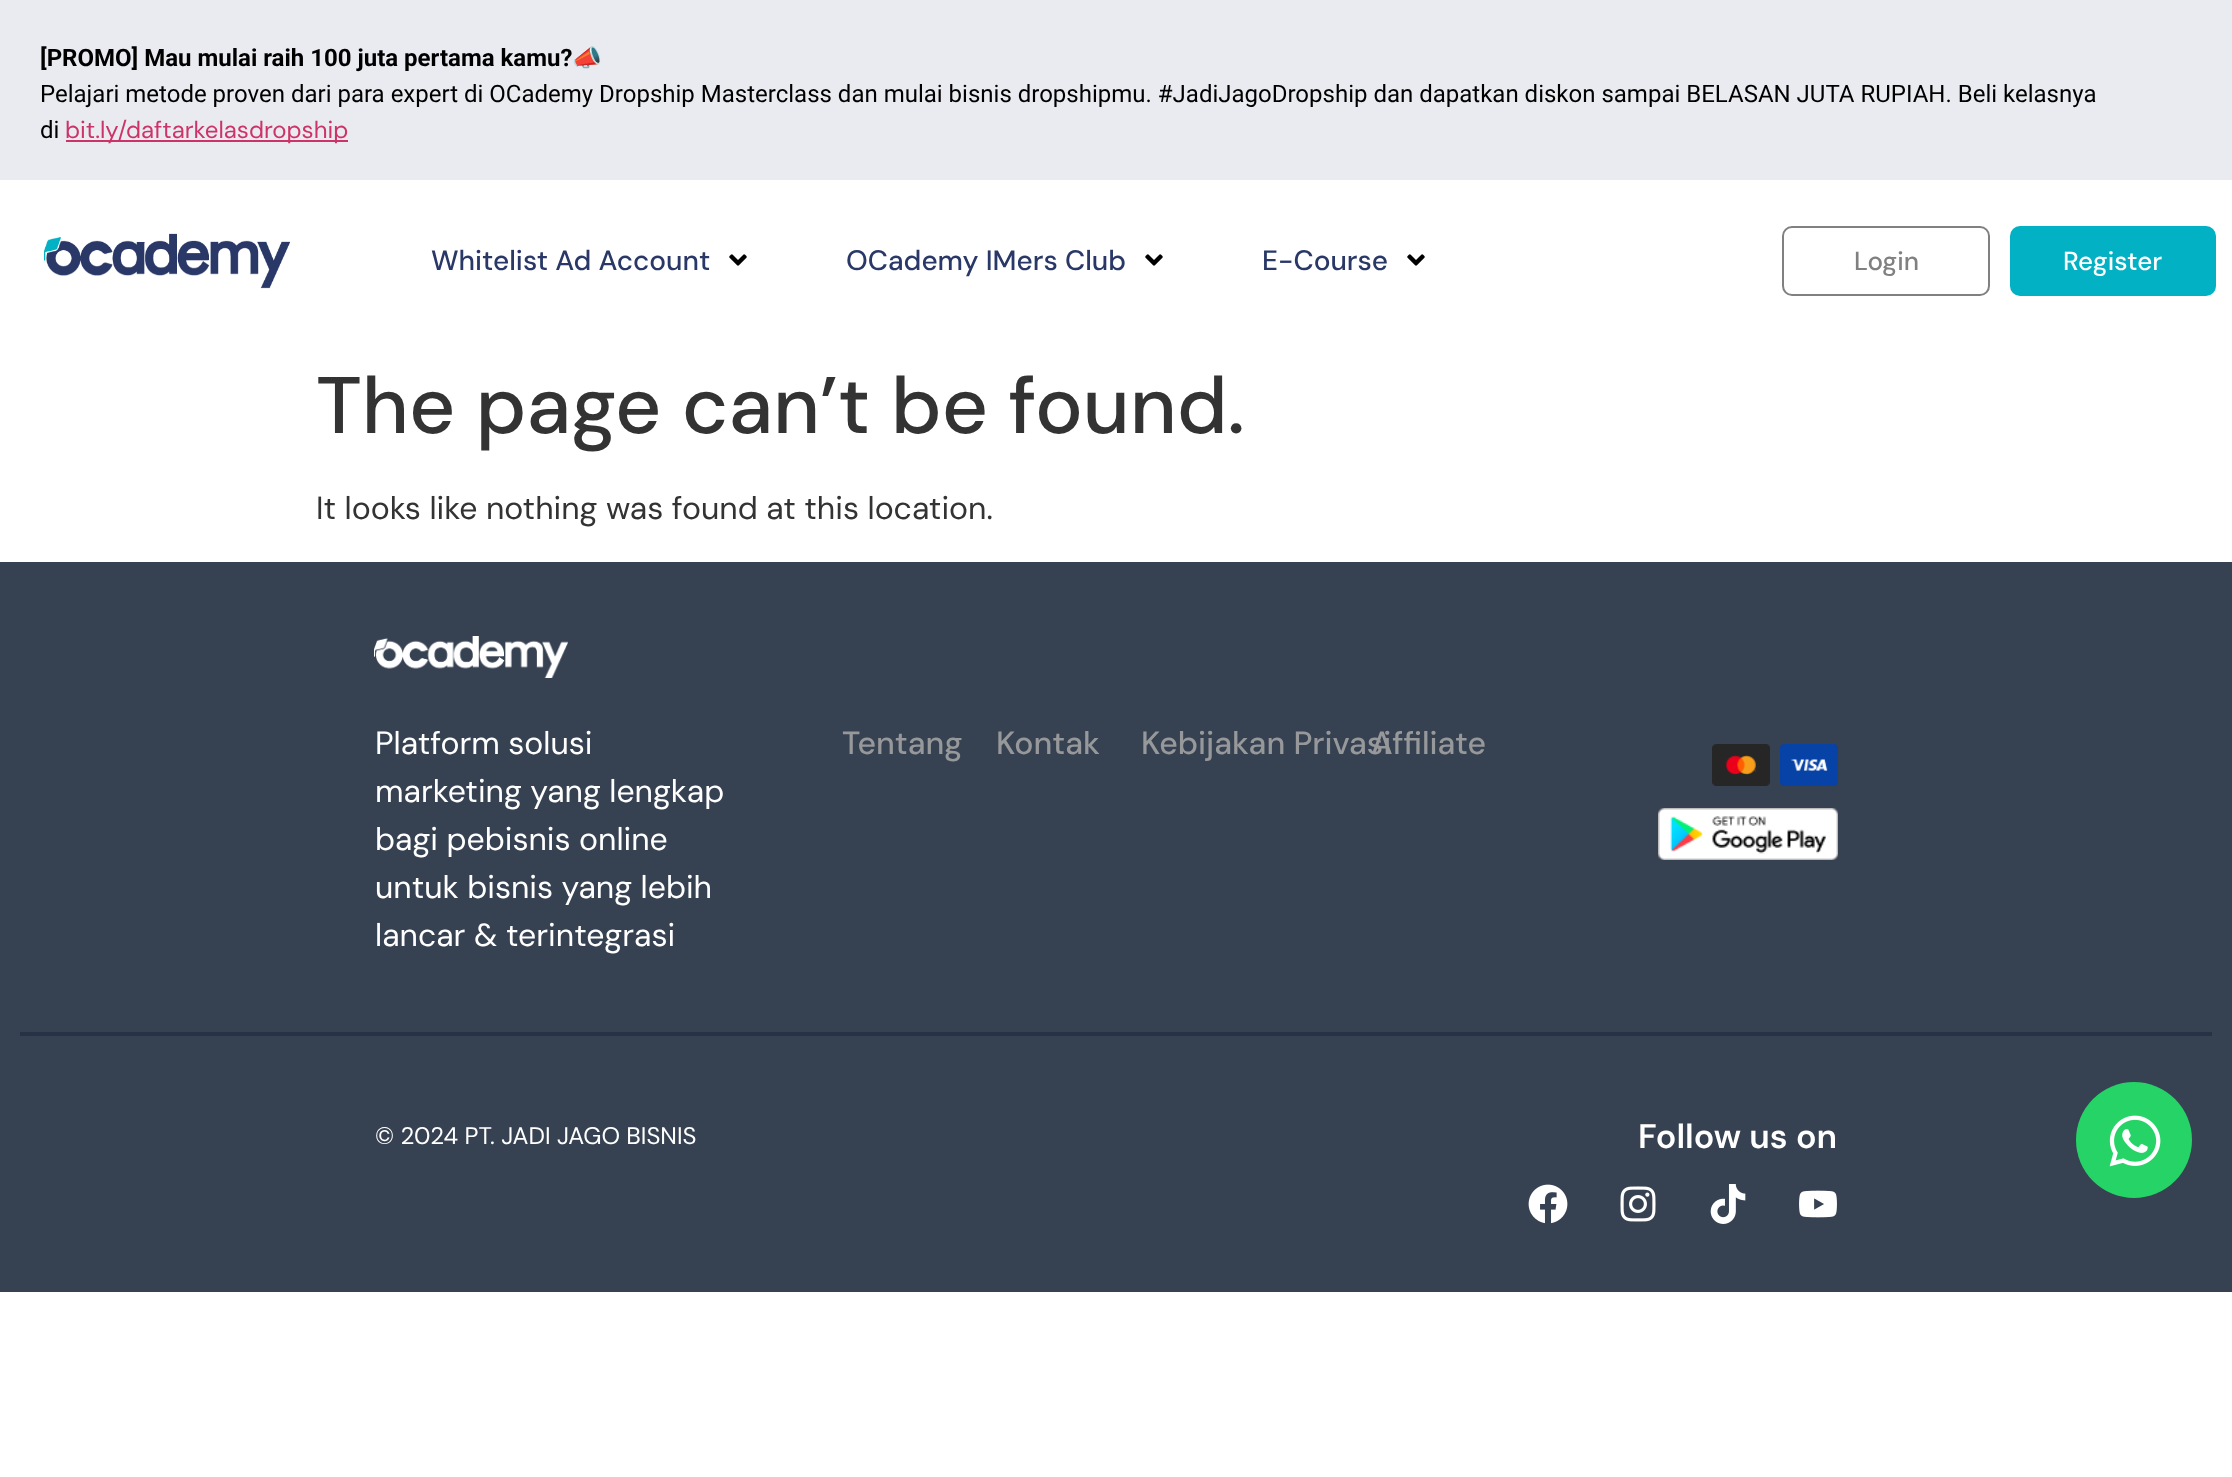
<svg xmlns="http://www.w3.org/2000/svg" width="2232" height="1477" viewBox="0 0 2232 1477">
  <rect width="100%" height="100%" fill="#ffffff"/>
  <rect x="0" y="0" width="2232" height="180" fill="#eaebf0"/>
  <text x="40" y="66" font-family="Roboto" font-size="24" font-weight="bold" fill="#000000">[PROMO] Mau mulai raih 100 juta pertama kamu?</text>
  <text x="572" y="66" font-family="Noto Color Emoji" font-size="24" font-weight="bold" fill="#000000">📣</text>
  <text x="40" y="102" font-family="Roboto" font-size="24" fill="#000000">Pelajari metode proven dari para expert di OCademy Dropship Masterclass dan mulai bisnis dropshipmu. #JadiJagoDropship dan dapatkan diskon sampai BELASAN JUTA RUPIAH. Beli kelasnya</text>
  <text x="40" y="138" font-family="Roboto" font-size="24" fill="#000000">di</text>
  <rect x="66" y="140" width="282" height="2" fill="#cc3366"/>
  <text x="65" y="138" font-family="DM Sans" font-size="24" fill="#cc3366">bit.ly/daftarkelasdropship</text>
  <image x="44" y="233" width="246" height="56" href="img1.png"/>
  <text x="431" y="270" font-family="DM Sans" font-size="28" font-weight="500" fill="#293867">Whitelist Ad Account</text>
  <image x="729" y="254" width="18" height="12" href="img2.png"/>
  <text x="846" y="270" font-family="DM Sans" font-size="28" font-weight="500" fill="#293867">OCademy IMers Club</text>
  <image x="1145" y="254" width="18" height="12" href="img2.png"/>
  <text x="1262" y="270" font-family="DM Sans" font-size="28" font-weight="500" fill="#293867">E-Course</text>
  <image x="1407" y="254" width="18" height="12" href="img2.png"/>
  <rect x="1783" y="227" width="206" height="68" rx="9" fill="none" stroke="#808080" stroke-width="2"/>
  <text x="1854" y="270" font-family="DM Sans" font-size="26" font-weight="500" fill="#808080">Login</text>
  <rect x="2010" y="226" width="206" height="70" rx="10" fill="#02b1c3"/>
  <text x="2063" y="270" font-family="DM Sans" font-size="26" font-weight="500" fill="#ffffff">Register</text>
  <text x="316" y="433" font-family="DM Sans" font-size="80" font-weight="500" fill="#333333">The page can’t be found.</text>
  <text x="316" y="519" font-family="DM Sans" font-size="32" fill="#333333">It looks like nothing was found at this location.</text>
  <rect x="0" y="562" width="2232" height="730" fill="#364152"/>
  <image x="374" y="636" width="194" height="42" href="img3.png"/>
  <text x="375" y="754" font-family="DM Sans" font-size="32" fill="#ffffff">Platform solusi</text>
  <text x="375" y="802" font-family="DM Sans" font-size="32" fill="#ffffff">marketing yang lengkap</text>
  <text x="375" y="850" font-family="DM Sans" font-size="32" fill="#ffffff">bagi pebisnis online</text>
  <text x="375" y="898" font-family="DM Sans" font-size="32" fill="#ffffff">untuk bisnis yang lebih</text>
  <text x="375" y="946" font-family="DM Sans" font-size="32" fill="#ffffff">lancar &amp; terintegrasi</text>
  <text x="842" y="754" font-family="DM Sans" font-size="32" font-weight="500" fill="#96989a">Tentang</text>
  <text x="996" y="754" font-family="DM Sans" font-size="32" font-weight="500" fill="#96989a">Kontak</text>
  <text x="1141" y="754" font-family="DM Sans" font-size="32" font-weight="500" fill="#96989a">Kebijakan Privasi</text>
  <text x="1371" y="754" font-family="DM Sans" font-size="32" font-weight="500" fill="#96989a">Affiliate</text>
  <image x="1712" y="744" width="58" height="42" href="img4.png"/>
  <image x="1780" y="744" width="58" height="42" href="img5.png"/>
  <image x="1658" y="808" width="180" height="52" href="img6.png"/>
  <rect x="20" y="1032" width="2192" height="4" fill="#273246"/>
  <text x="375" y="1144" font-family="DM Sans" font-size="24" fill="#ffffff">© 2024 PT. JADI JAGO BISNIS</text>
  <text x="1638" y="1148" font-family="DM Sans" font-size="34" font-weight="600" fill="#ffffff">Follow us on</text>
  <image x="1528" y="1184" width="40" height="40" href="img7.png"/>
  <image x="1620" y="1186" width="36" height="36" href="img8.png"/>
  <image x="1710" y="1184" width="36" height="40" href="img9.png"/>
  <image x="1799" y="1190" width="38" height="28" href="img10.png"/>
  <circle cx="2134" cy="1140" r="58" fill="#25d366"/>
  <image x="2109" y="1115" width="52" height="52" href="img11.png"/>
</svg>
